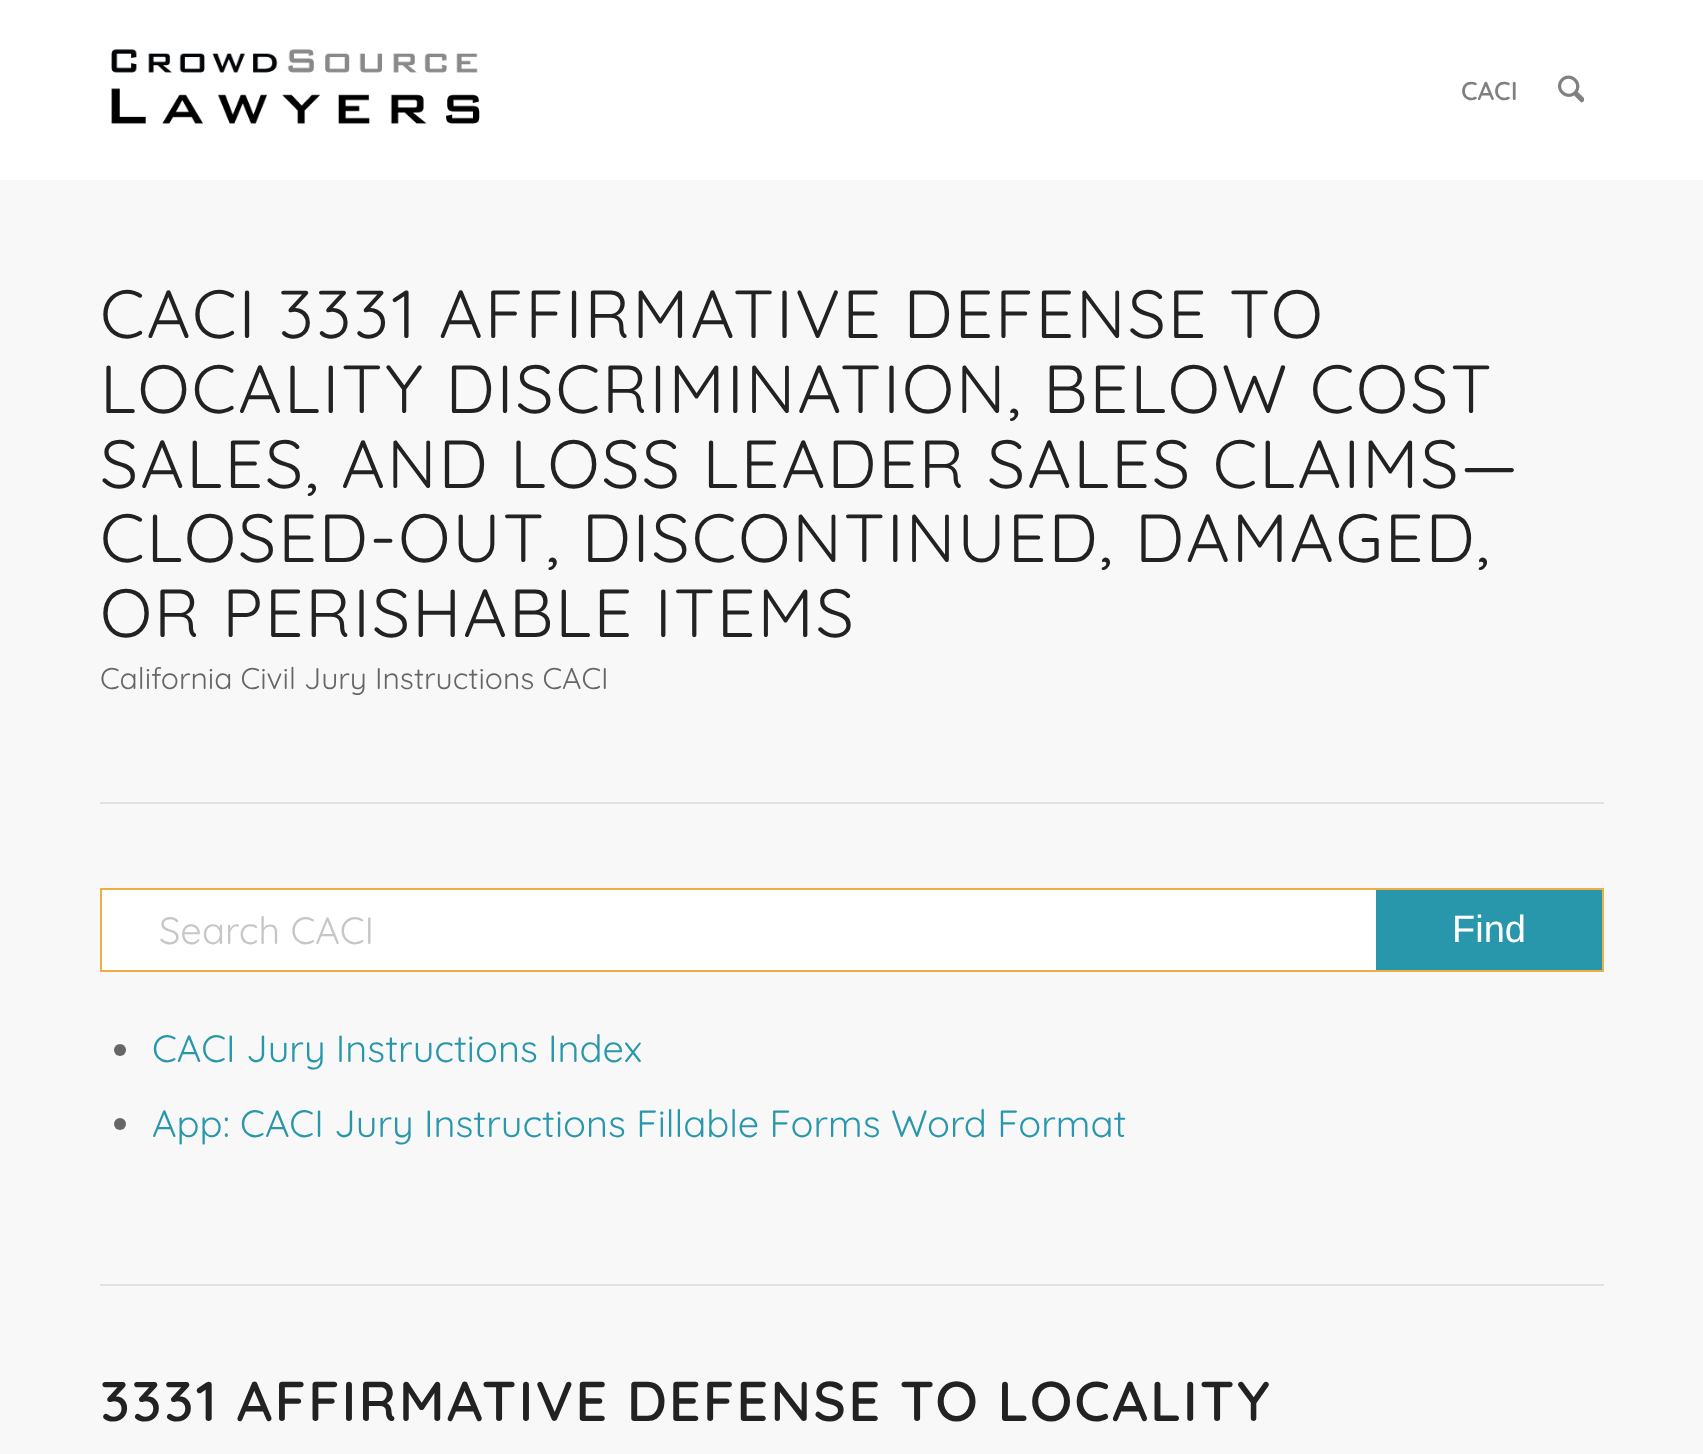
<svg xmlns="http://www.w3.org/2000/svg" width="1703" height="1454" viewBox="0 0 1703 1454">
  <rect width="100%" height="100%" fill="#f8f8f8"/>
  <rect x="0" y="0" width="1703" height="180" fill="#ffffff"/>
  <image x="111" y="49" width="369" height="75" href="img1.png"/>
  <text x="1461" y="100" font-family="Quicksand" font-size="26" font-weight="600" fill="#808080">CACI</text>
  <image x="1558" y="75" width="26" height="28" href="img2.png"/>
  <text x="100" y="338" font-family="Quicksand" font-size="68" letter-spacing="2" fill="#222222">CACI 3331 AFFIRMATIVE DEFENSE TO</text>
  <text x="100" y="413" font-family="Quicksand" font-size="68" letter-spacing="2" fill="#222222">LOCALITY DISCRIMINATION, BELOW COST</text>
  <text x="100" y="488" font-family="Quicksand" font-size="68" letter-spacing="2" fill="#222222">SALES, AND LOSS LEADER SALES CLAIMS—</text>
  <text x="100" y="562" font-family="Quicksand" font-size="68" letter-spacing="2" fill="#222222">CLOSED-OUT, DISCONTINUED, DAMAGED,</text>
  <text x="100" y="637" font-family="Quicksand" font-size="68" letter-spacing="2" fill="#222222">OR PERISHABLE ITEMS</text>
  <text x="100" y="689" font-family="Quicksand" font-size="30" fill="#666666">California Civil Jury Instructions CACI</text>
  <rect x="100" y="802" width="1504" height="2" fill="#e1e1e1"/>
  <rect x="100" y="888" width="1504" height="84" fill="#edae44"/>
  <rect x="102" y="890" width="1274" height="80" fill="#ffffff"/>
  <text x="159" y="944" font-family="Quicksand" font-size="38" fill="#c6c6c6">Search CACI</text>
  <rect x="1376" y="890" width="226" height="80" fill="#2997ab"/>
  <text x="1452" y="942" font-family="Liberation Sans" font-size="38" fill="#ffffff">Find</text>
  <circle cx="120" cy="1050" r="6" fill="#666666"/>
  <text x="152" y="1062" font-family="Quicksand" font-size="38" fill="#2997ab">CACI Jury Instructions Index</text>
  <circle cx="120" cy="1124" r="6" fill="#666666"/>
  <text x="152" y="1137" font-family="Quicksand" font-size="38" fill="#2997ab">App: CACI Jury Instructions Fillable Forms Word Format</text>
  <rect x="100" y="1284" width="1504" height="2" fill="#e1e1e1"/>
  <text x="100" y="1421" font-family="Quicksand" font-size="56" font-weight="600" letter-spacing="2" fill="#222222">3331 AFFIRMATIVE DEFENSE TO LOCALITY</text>
</svg>
